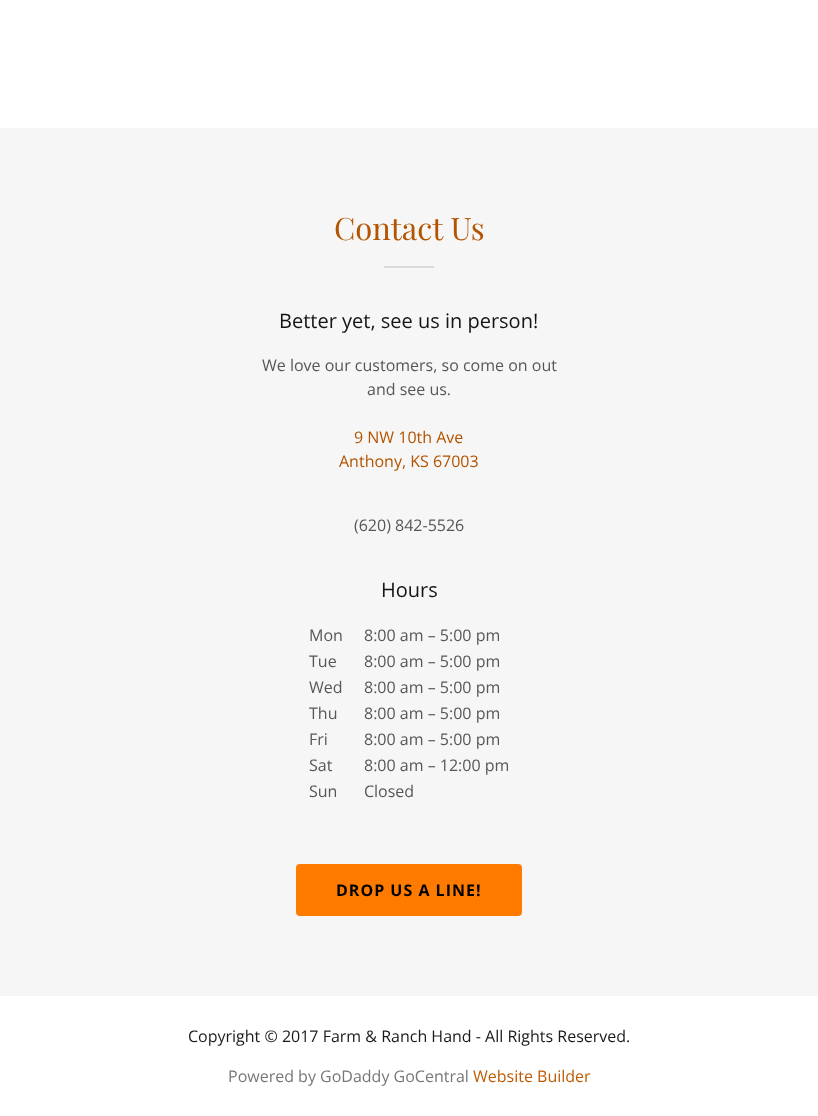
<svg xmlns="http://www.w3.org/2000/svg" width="818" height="1116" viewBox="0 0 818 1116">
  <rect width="100%" height="100%" fill="#ffffff"/>
  <rect x="0" y="128" width="818" height="868" fill="#f6f6f6"/>
  <text x="334" y="240" font-family="Playfair Display" font-size="31" fill="#b35400">Contact Us</text>
  <rect x="384" y="266" width="50" height="2" fill="#dadada"/>
  <text x="279" y="328" font-family="Open Sans" font-size="20" fill="#151515">Better yet, see us in person!</text>
  <text x="262" y="371" font-family="Open Sans" font-size="16" fill="#575757">We love our customers, so come on out</text>
  <text x="367" y="395" font-family="Open Sans" font-size="16" fill="#575757">and see us.</text>
  <text x="354" y="443" font-family="Open Sans" font-size="16" fill="#b35400">9 NW 10th Ave</text>
  <text x="339" y="467" font-family="Open Sans" font-size="16" fill="#b35400">Anthony, KS 67003</text>
  <text x="354" y="531" font-family="Open Sans" font-size="16" fill="#575757">(620) 842-5526</text>
  <text x="381" y="597" font-family="Open Sans" font-size="20" fill="#151515">Hours</text>
  <text x="309" y="641" font-family="Open Sans" font-size="16" fill="#575757">Mon</text>
  <text x="364" y="641" font-family="Open Sans" font-size="16" fill="#575757">8:00 am – 5:00 pm</text>
  <text x="309" y="667" font-family="Open Sans" font-size="16" fill="#575757">Tue</text>
  <text x="364" y="667" font-family="Open Sans" font-size="16" fill="#575757">8:00 am – 5:00 pm</text>
  <text x="309" y="693" font-family="Open Sans" font-size="16" fill="#575757">Wed</text>
  <text x="364" y="693" font-family="Open Sans" font-size="16" fill="#575757">8:00 am – 5:00 pm</text>
  <text x="309" y="719" font-family="Open Sans" font-size="16" fill="#575757">Thu</text>
  <text x="364" y="719" font-family="Open Sans" font-size="16" fill="#575757">8:00 am – 5:00 pm</text>
  <text x="309" y="745" font-family="Open Sans" font-size="16" fill="#575757">Fri</text>
  <text x="364" y="745" font-family="Open Sans" font-size="16" fill="#575757">8:00 am – 5:00 pm</text>
  <text x="309" y="771" font-family="Open Sans" font-size="16" fill="#575757">Sat</text>
  <text x="364" y="771" font-family="Open Sans" font-size="16" fill="#575757">8:00 am – 12:00 pm</text>
  <text x="309" y="797" font-family="Open Sans" font-size="16" fill="#575757">Sun</text>
  <text x="364" y="797" font-family="Open Sans" font-size="16" fill="#575757">Closed</text>
  <rect x="296" y="864" width="226" height="52" rx="4" fill="#ff7b00"/>
  <text x="336" y="896" font-family="Open Sans" font-size="16" font-weight="bold" letter-spacing="1" fill="#000000">DROP US A LINE!</text>
  <text x="188" y="1042" font-family="Open Sans" font-size="16" fill="#1b1b1b">Copyright © 2017 Farm &amp; Ranch Hand - All Rights Reserved.</text>
  <text x="228" y="1082" font-family="Open Sans" font-size="16" fill="#777777">Powered by GoDaddy GoCentral</text>
  <text x="473" y="1082" font-family="Open Sans" font-size="16" fill="#bf5a00">Website Builder</text>
</svg>
